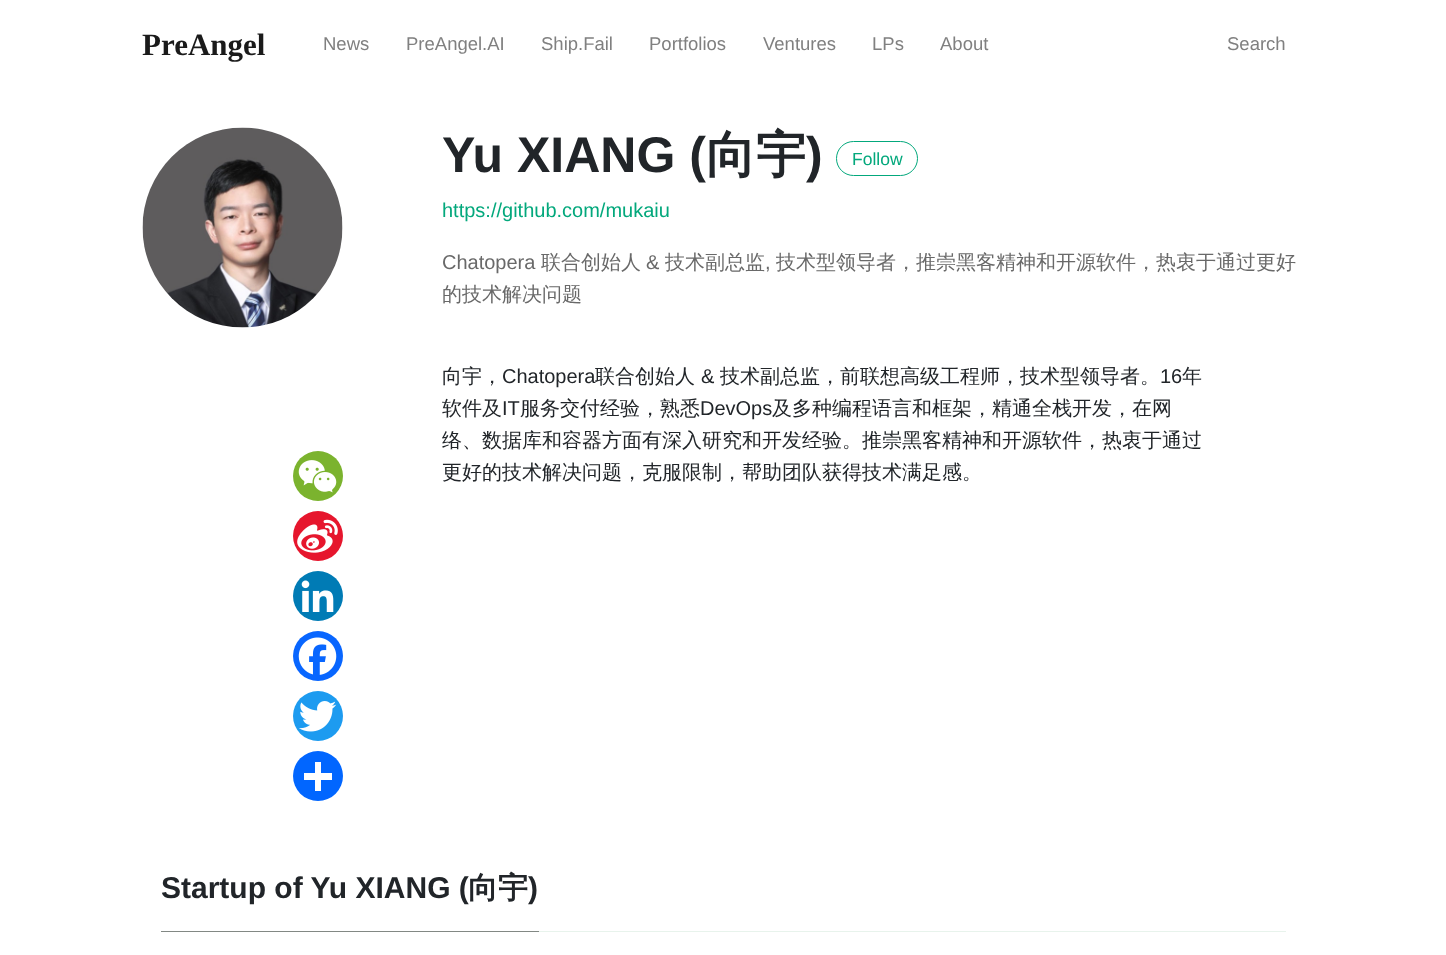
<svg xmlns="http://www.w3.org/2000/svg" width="1446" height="955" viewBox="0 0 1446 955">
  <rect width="100%" height="100%" fill="#ffffff"/>
  <text x="142" y="55" font-family="Liberation Serif" font-size="31" font-weight="bold" fill="#1a1a1a">PreAngel</text>
  <text x="323" y="50" font-family="Liberation Sans" font-size="18.5" fill="#808080">News</text>
  <text x="406" y="50" font-family="Liberation Sans" font-size="18.5" fill="#808080">PreAngel.AI</text>
  <text x="541" y="50" font-family="Liberation Sans" font-size="18.5" fill="#808080">Ship.Fail</text>
  <text x="649" y="50" font-family="Liberation Sans" font-size="18.5" fill="#808080">Portfolios</text>
  <text x="763" y="50" font-family="Liberation Sans" font-size="18.5" fill="#808080">Ventures</text>
  <text x="872" y="50" font-family="Liberation Sans" font-size="18.5" fill="#808080">LPs</text>
  <text x="940" y="50" font-family="Liberation Sans" font-size="18.5" fill="#808080">About</text>
  <text x="1227" y="50" font-family="Liberation Sans" font-size="18.5" fill="#808080">Search</text>
  <image x="142" y="127" width="201" height="201" href="img1.png"/>
  <text x="442" y="172" font-family="Liberation Sans" font-size="50" font-weight="bold" fill="#212529">Yu XIANG (</text>
  <text x="706" y="172" font-family="WenQuanYi Zen Hei" font-size="50" font-weight="bold" fill="#212529">向宇</text>
  <text x="806" y="172" font-family="Liberation Sans" font-size="50" font-weight="bold" fill="#212529">)</text>
  <rect x="836.5" y="141.5" width="81" height="34" rx="17" fill="none" stroke="#03a87c"/>
  <text x="852" y="165" font-family="Liberation Sans" font-size="17.5" fill="#03a87c">Follow</text>
  <text x="442" y="217" font-family="Liberation Sans" font-size="20" fill="#03a87c">https://github.com/mukaiu</text>
  <text x="442" y="269" font-family="Liberation Sans" font-size="20" fill="#696969">Chatopera</text>
  <text x="541" y="269" font-family="WenQuanYi Zen Hei" font-size="20" font-weight="500" fill="#696969">联合创始人</text>
  <text x="646" y="269" font-family="Liberation Sans" font-size="20" fill="#696969">&amp;</text>
  <text x="665" y="269" font-family="WenQuanYi Zen Hei" font-size="20" font-weight="500" fill="#696969">技术副总监</text>
  <text x="765" y="269" font-family="Liberation Sans" font-size="20" fill="#696969">,</text>
  <text x="776" y="269" font-family="WenQuanYi Zen Hei" font-size="20" font-weight="500" fill="#696969">技术型领导者，推崇黑客精神和开源软件，热衷于通过更好</text>
  <text x="442" y="301" font-family="WenQuanYi Zen Hei" font-size="20" font-weight="500" fill="#696969">的技术解决问题</text>
  <text x="442" y="383" font-family="WenQuanYi Zen Hei" font-size="20" font-weight="500" fill="#212529">向宇，</text>
  <text x="502" y="383" font-family="Liberation Sans" font-size="20" fill="#212529">Chatopera</text>
  <text x="595" y="383" font-family="WenQuanYi Zen Hei" font-size="20" font-weight="500" fill="#212529">联合创始人</text>
  <text x="701" y="383" font-family="Liberation Sans" font-size="20" fill="#212529">&amp;</text>
  <text x="720" y="383" font-family="WenQuanYi Zen Hei" font-size="20" font-weight="500" fill="#212529">技术副总监，前联想高级工程师，技术型领导者。</text>
  <text x="1160" y="383" font-family="Liberation Sans" font-size="20" fill="#212529">16</text>
  <text x="1182" y="383" font-family="WenQuanYi Zen Hei" font-size="20" font-weight="500" fill="#212529">年</text>
  <text x="442" y="415" font-family="WenQuanYi Zen Hei" font-size="20" font-weight="500" fill="#212529">软件及</text>
  <text x="502" y="415" font-family="Liberation Sans" font-size="20" fill="#212529">IT</text>
  <text x="520" y="415" font-family="WenQuanYi Zen Hei" font-size="20" font-weight="500" fill="#212529">服务交付经验，熟悉</text>
  <text x="700" y="415" font-family="Liberation Sans" font-size="20" fill="#212529">DevOps</text>
  <text x="772" y="415" font-family="WenQuanYi Zen Hei" font-size="20" font-weight="500" fill="#212529">及多种编程语言和框架，精通全栈开发，在网</text>
  <text x="442" y="447" font-family="WenQuanYi Zen Hei" font-size="20" font-weight="500" fill="#212529">络、数据库和容器方面有深入研究和开发经验。推崇黑客精神和开源软件，热衷于通过</text>
  <text x="442" y="479" font-family="WenQuanYi Zen Hei" font-size="20" font-weight="500" fill="#212529">更好的技术解决问题，克服限制，帮助团队获得技术满足感。</text>
  <circle cx="318" cy="476" r="25" fill="#7bb32e"/>
  <image x="298" y="460" width="39" height="33" href="img2.png"/>
  <circle cx="318" cy="536" r="25" fill="#e6162d"/>
  <image x="297" y="519" width="41" height="34" href="img3.png"/>
  <circle cx="318" cy="596" r="25" fill="#007bb5"/>
  <image x="301" y="580" width="33" height="32" href="img4.png"/>
  <circle cx="318" cy="656" r="25" fill="#0866ff"/>
  <image x="298" y="637" width="39" height="38" href="img5.png"/>
  <circle cx="318" cy="716" r="25" fill="#1d9bf0"/>
  <image x="299" y="701" width="38" height="31" href="img6.png"/>
  <circle cx="318" cy="776" r="25" fill="#0166ff"/>
  <rect x="315" y="762" width="6" height="29" fill="#ffffff"/>
  <rect x="304" y="773" width="28" height="7" fill="#ffffff"/>
  <rect x="539" y="931" width="747" height="1" fill="#e8f3ec"/>
  <rect x="161" y="931" width="378" height="1" fill="#828884"/>
  <text x="161" y="898" font-family="Liberation Sans" font-size="30" font-weight="bold" fill="#212529">Startup of Yu XIANG (</text>
  <text x="468" y="898" font-family="WenQuanYi Zen Hei" font-size="30" font-weight="bold" fill="#212529">向宇</text>
  <text x="528" y="898" font-family="Liberation Sans" font-size="30" font-weight="bold" fill="#212529">)</text>
</svg>
